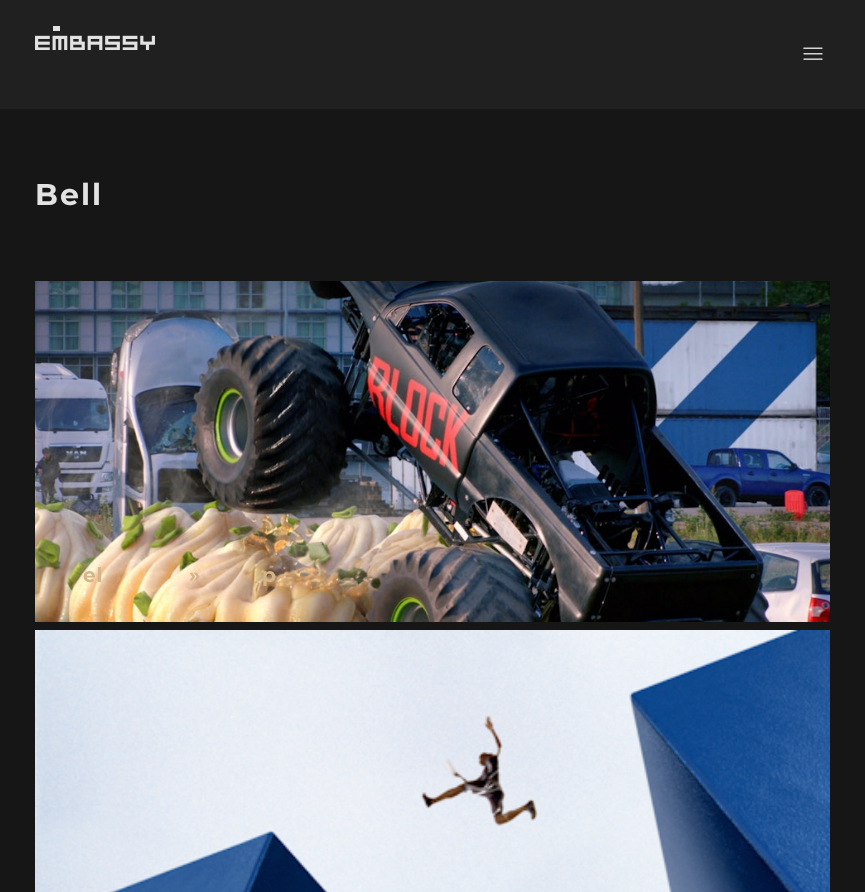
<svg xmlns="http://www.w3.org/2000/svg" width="865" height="892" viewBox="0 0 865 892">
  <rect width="100%" height="100%" fill="#161616"/>
  <rect x="0" y="0" width="865" height="109" fill="#202020"/>
  <image x="35" y="26" width="120" height="24" href="img1.png"/>
  <image x="803" y="47" width="20" height="13" href="img2.png"/>
  <text x="35" y="205" font-family="Montserrat" font-size="30" font-weight="bold" letter-spacing="2" fill="#e2e2e2">Bell</text>
  <image x="35" y="281" width="795" height="341" href="img3.png"/>
  <text x="83" y="582" font-family="Montserrat" font-size="20" font-weight="bold" letter-spacing="1" fill="#d4b48a">el</text>
  <text x="189" y="582" font-family="Montserrat" font-size="20" font-weight="bold" letter-spacing="1" fill="#d4b48a">»</text>
  <text x="262" y="582" font-family="Montserrat" font-size="20" font-weight="bold" letter-spacing="1" fill="#d4b48a">p</text>
  <image x="35" y="630" width="795" height="262" href="img4.png"/>
</svg>
